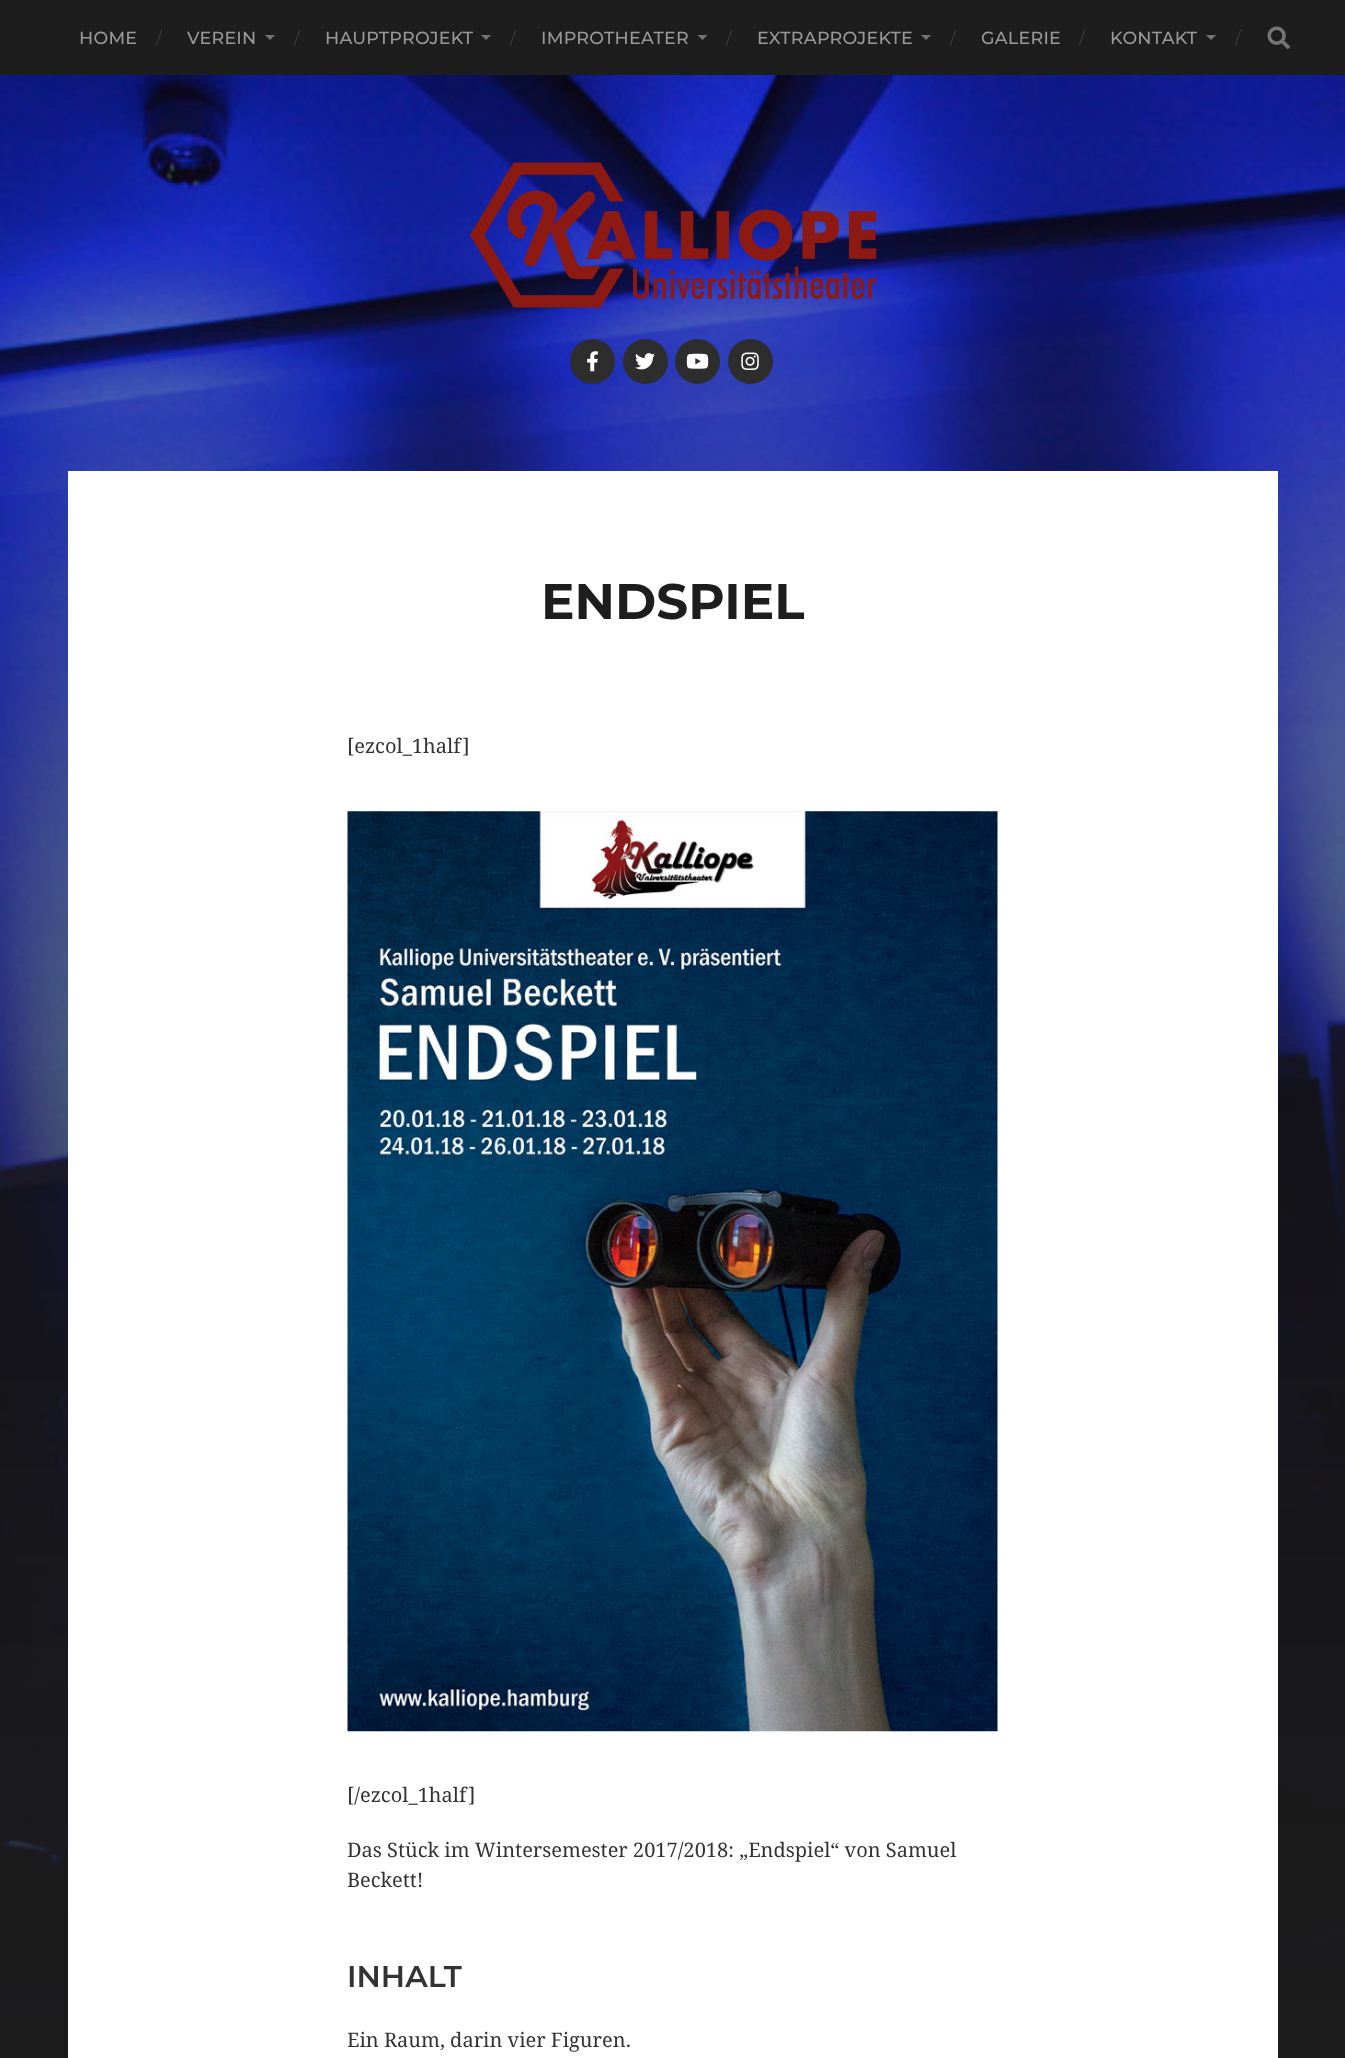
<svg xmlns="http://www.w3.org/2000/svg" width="1345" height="2058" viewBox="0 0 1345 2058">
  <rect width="100%" height="100%" fill="#1d1d1d"/>
  <text x="79" y="44" font-family="Montserrat" font-size="17.5" font-weight="100" letter-spacing="0.25" fill="#999999">HOME</text>
  <text x="156" y="44" font-family="'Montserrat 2'" font-size="17.5" font-weight="100" fill="#3d3d3d">/</text>
  <text x="187" y="44" font-family="Montserrat" font-size="17.5" font-weight="100" letter-spacing="0.25" fill="#999999">VEREIN</text>
  <path d="M265 35H275L270 40Z" fill="#757575"/>
  <text x="294" y="44" font-family="'Montserrat 2'" font-size="17.5" font-weight="100" fill="#3d3d3d">/</text>
  <text x="325" y="44" font-family="Montserrat" font-size="17.5" font-weight="100" letter-spacing="0.25" fill="#999999">HAUPTPROJEKT</text>
  <path d="M481 35H491L486 40Z" fill="#757575"/>
  <text x="510" y="44" font-family="'Montserrat 2'" font-size="17.5" font-weight="100" fill="#3d3d3d">/</text>
  <text x="541" y="44" font-family="Montserrat" font-size="17.5" font-weight="100" letter-spacing="0.25" fill="#999999">IMPROTHEATER</text>
  <path d="M697.5 35H707.5L702.5 40Z" fill="#757575"/>
  <text x="726" y="44" font-family="'Montserrat 2'" font-size="17.5" font-weight="100" fill="#3d3d3d">/</text>
  <text x="757" y="44" font-family="Montserrat" font-size="17.5" font-weight="100" letter-spacing="0.25" fill="#999999">EXTRAPROJEKTE</text>
  <path d="M921 35H931L926 40Z" fill="#757575"/>
  <text x="950" y="44" font-family="'Montserrat 2'" font-size="17.5" font-weight="100" fill="#3d3d3d">/</text>
  <text x="981" y="44" font-family="Montserrat" font-size="17.5" font-weight="100" letter-spacing="0.25" fill="#999999">GALERIE</text>
  <text x="1079" y="44" font-family="'Montserrat 2'" font-size="17.5" font-weight="100" fill="#3d3d3d">/</text>
  <text x="1110" y="44" font-family="Montserrat" font-size="17.5" font-weight="100" letter-spacing="0.25" fill="#999999">KONTAKT</text>
  <path d="M1206 35H1216L1211 40Z" fill="#757575"/>
  <text x="1235" y="44" font-family="'Montserrat 2'" font-size="17.5" font-weight="100" fill="#3d3d3d">/</text>
  <image x="1267" y="26" width="23" height="23" href="img1.png"/>
  <image x="0" y="75" width="1345" height="1983" href="img2.png"/>
  <image x="470" y="162" width="407" height="146" href="img3.png"/>
  <circle cx="592.5" cy="361.5" r="22.5" fill="#2d2d2d"/>
  <image x="587" y="351" width="11" height="21" href="img4.png"/>
  <circle cx="645.5" cy="361.5" r="22.5" fill="#2d2d2d"/>
  <image x="635" y="353" width="20" height="17" href="img5.png"/>
  <circle cx="697.5" cy="361.5" r="22.5" fill="#2d2d2d"/>
  <image x="686" y="353" width="23" height="16" href="img6.png"/>
  <circle cx="750.5" cy="361.5" r="22.5" fill="#2d2d2d"/>
  <image x="741" y="352" width="18" height="18" href="img7.png"/>
  <rect x="68" y="471" width="1210" height="1587" fill="#ffffff"/>
  <text x="541" y="619" font-family="'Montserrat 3'" font-size="50" font-weight="100" fill="#1d1d1d">ENDSPIEL</text>
  <text x="347" y="753" font-family="Droid Serif" font-size="20" fill="#333333">[ezcol_1half]</text>
  <image x="347" y="811" width="651" height="921" href="img8.png"/>
  <text x="347" y="1802" font-family="Droid Serif" font-size="20" fill="#333333">[/ezcol_1half]</text>
  <text x="347" y="1857" font-family="Droid Serif" font-size="20" fill="#333333">Das Stück im Wintersemester 2017/2018: „Endspiel“ von Samuel</text>
  <text x="347" y="1887" font-family="Droid Serif" font-size="20" fill="#333333">Beckett!</text>
  <text x="347" y="1987" font-family="'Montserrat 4'" font-size="30" font-weight="100" fill="#333333">INHALT</text>
  <text x="347" y="2047" font-family="Droid Serif" font-size="20" fill="#333333">Ein Raum, darin vier Figuren.</text>
</svg>
